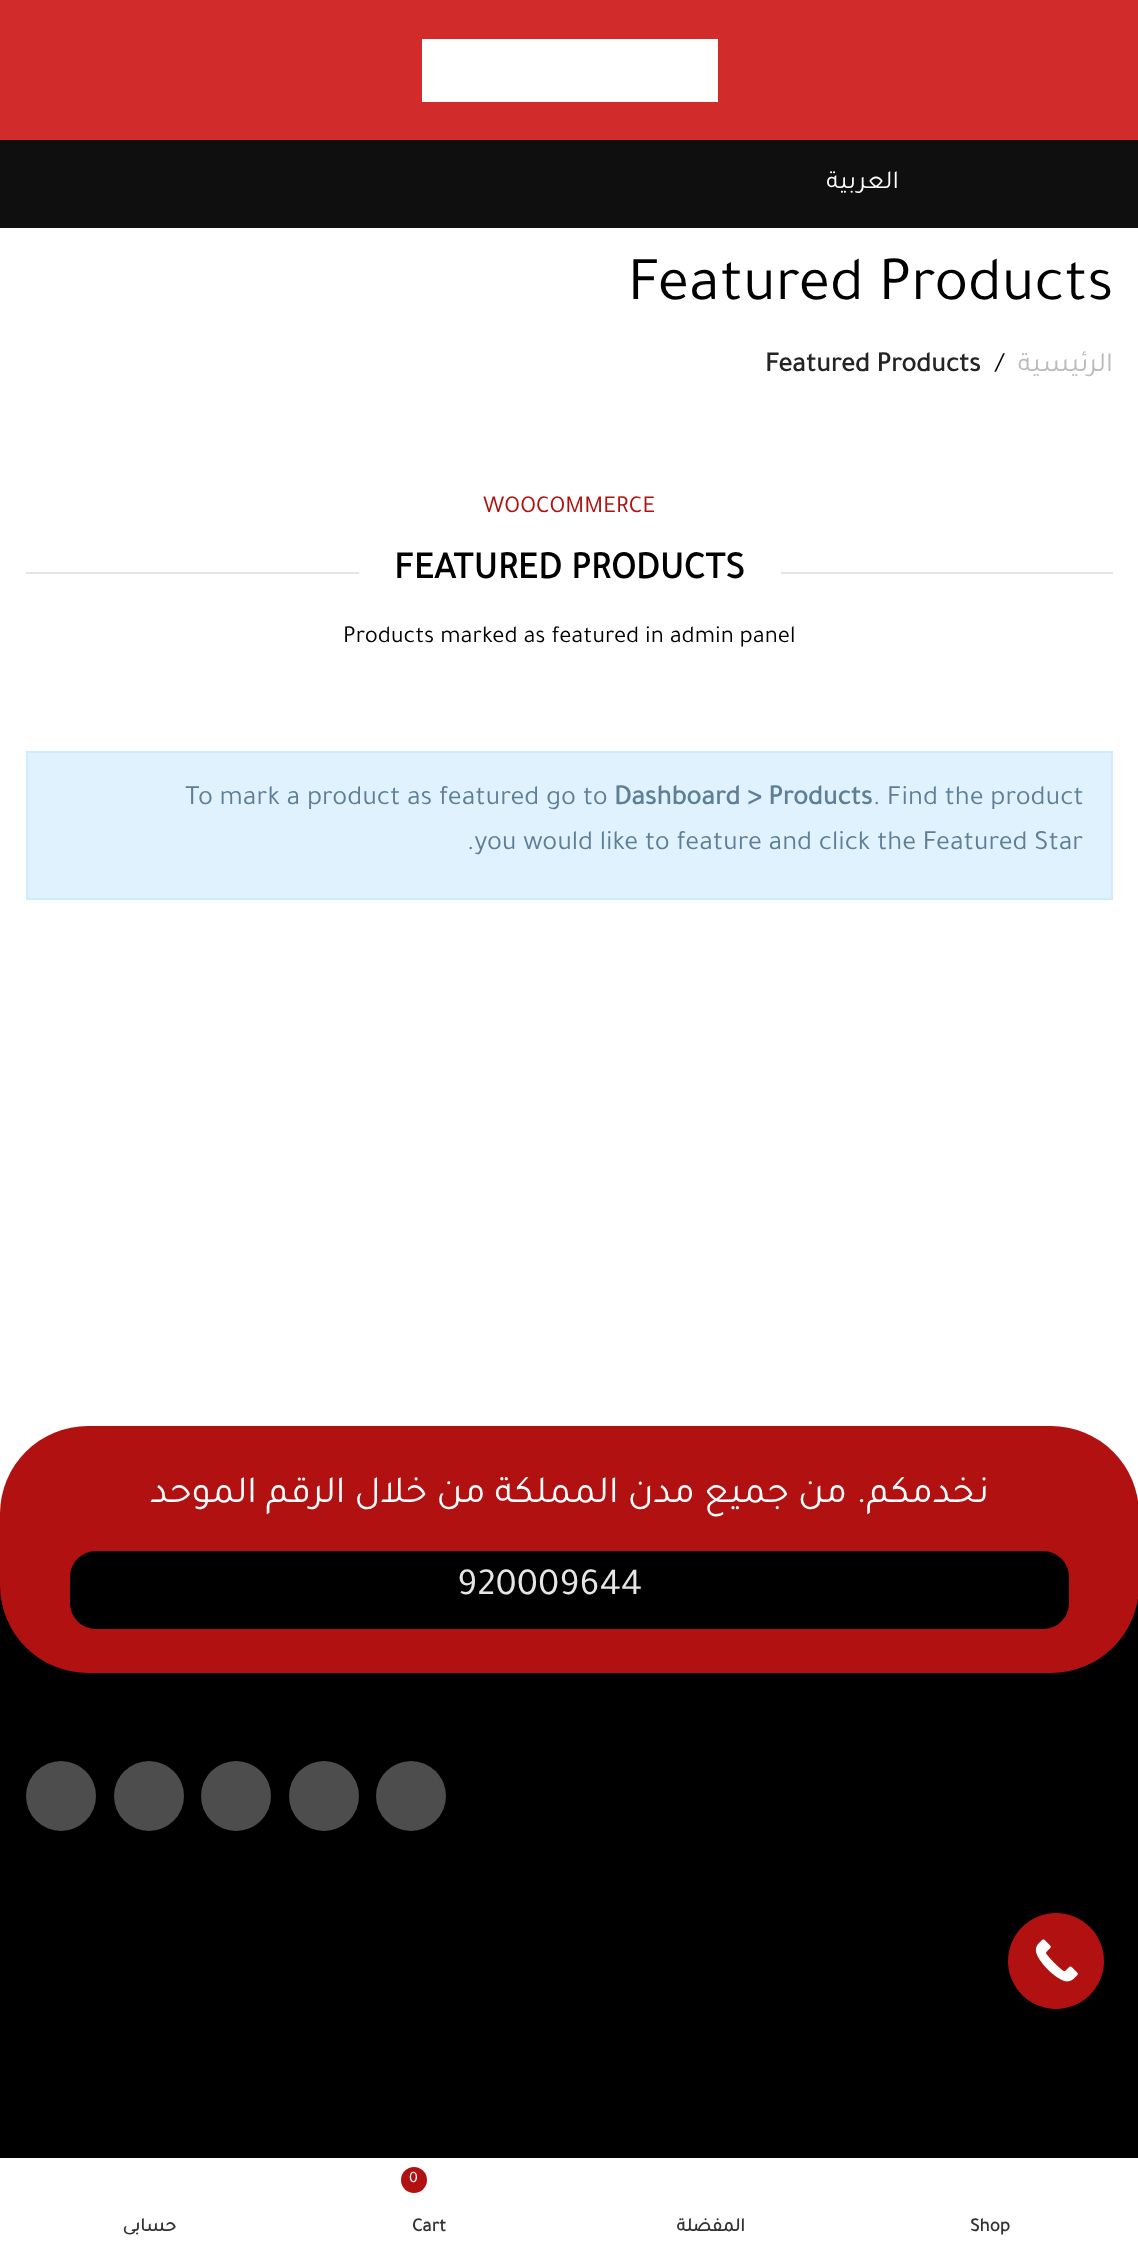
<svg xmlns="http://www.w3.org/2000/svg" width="1138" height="2254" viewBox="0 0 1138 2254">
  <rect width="100%" height="100%" fill="#ffffff"/>
  <rect x="0" y="0" width="1138" height="140" fill="#d22b2b"/>
  <rect x="422" y="39" width="296" height="63" fill="#ffffff"/>
  <rect x="0" y="140" width="1138" height="88" fill="#0f0f0f"/>
  <text x="899" y="188" font-family="Tajawal" font-size="26" direction="rtl" fill="#ffffff">العربية</text>
  <text x="628" y="299" font-family="Tajawal" font-size="63" fill="#000000">Featured Products</text>
  <text x="765" y="371" font-family="Tajawal" font-size="28" font-weight="bold" fill="#242424">Featured Products</text>
  <text x="995" y="371" font-family="Tajawal" font-size="28" fill="#000000">/</text>
  <text x="1113" y="371" font-family="Tajawal" font-size="28" direction="rtl" fill="#bbbbbb">الرئيسية</text>
  <text x="483" y="512" font-family="Tajawal" font-size="24.5" fill="#b11111">WOOCOMMERCE</text>
  <rect x="26" y="572" width="333" height="2" fill="#e4e4e4"/>
  <text x="394" y="578" font-family="Tajawal" font-size="38.5" font-weight="bold" fill="#000000">FEATURED PRODUCTS</text>
  <rect x="781" y="572" width="332" height="2" fill="#e4e4e4"/>
  <text x="343" y="642" font-family="Tajawal" font-size="24.5" fill="#000000">Products marked as featured in admin panel</text>
  <rect x="27" y="752" width="1085" height="147" fill="#dff2fe" stroke="#cfebfe" stroke-width="2"/>
  <text x="185" y="804" font-family="Tajawal" font-size="28" fill="#5e7f96">To mark a product as featured go to</text>
  <text x="614" y="804" font-family="Tajawal" font-size="28" font-weight="bold" fill="#5e7f96">Dashboard &gt; Products</text>
  <text x="873" y="804" font-family="Tajawal" font-size="28" fill="#5e7f96">. Find the product</text>
  <text x="467" y="849" font-family="Tajawal" font-size="28" fill="#5e7f96">.you would like to feature and click the Featured Star</text>
  <rect x="0" y="1512" width="1138" height="646" fill="#000000"/>
  <rect x="0" y="1426" width="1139" height="247" rx="88" fill="#b11111"/>
  <text x="989" y="1502" font-family="Tajawal" font-size="38.5" direction="rtl" fill="#ffffff">نخدمكم. من جميع مدن المملكة من خلال الرقم الموحد</text>
  <rect x="70" y="1551" width="999" height="78" rx="26" fill="#000000"/>
  <text x="457" y="1594" font-family="Tajawal" font-size="38.5" fill="#e6e6e6">920009644</text>
  <circle cx="61" cy="1796" r="35" fill="#4d4d4d"/>
  <circle cx="149" cy="1796" r="35" fill="#4d4d4d"/>
  <circle cx="236" cy="1796" r="35" fill="#4d4d4d"/>
  <circle cx="324" cy="1796" r="35" fill="#4d4d4d"/>
  <circle cx="411" cy="1796" r="35" fill="#4d4d4d"/>
  <circle cx="1056" cy="1961" r="48" fill="#b11111"/>
  <image x="1035" y="1939" width="43" height="43" href="img1.png"/>
  <text x="176" y="2231" font-family="Tajawal" font-size="19" font-weight="bold" direction="rtl" fill="#333333">حسابى</text>
  <circle cx="414" cy="2180" r="13" fill="#b11111"/>
  <text x="409" y="2182" font-family="Tajawal" font-size="16" fill="#ffffff">0</text>
  <text x="412" y="2231" font-family="Tajawal" font-size="19" font-weight="bold" fill="#333333">Cart</text>
  <text x="745" y="2231" font-family="Tajawal" font-size="19" font-weight="bold" direction="rtl" fill="#333333">المفضلة</text>
  <text x="970" y="2231" font-family="Tajawal" font-size="19" font-weight="bold" fill="#333333">Shop</text>
</svg>
